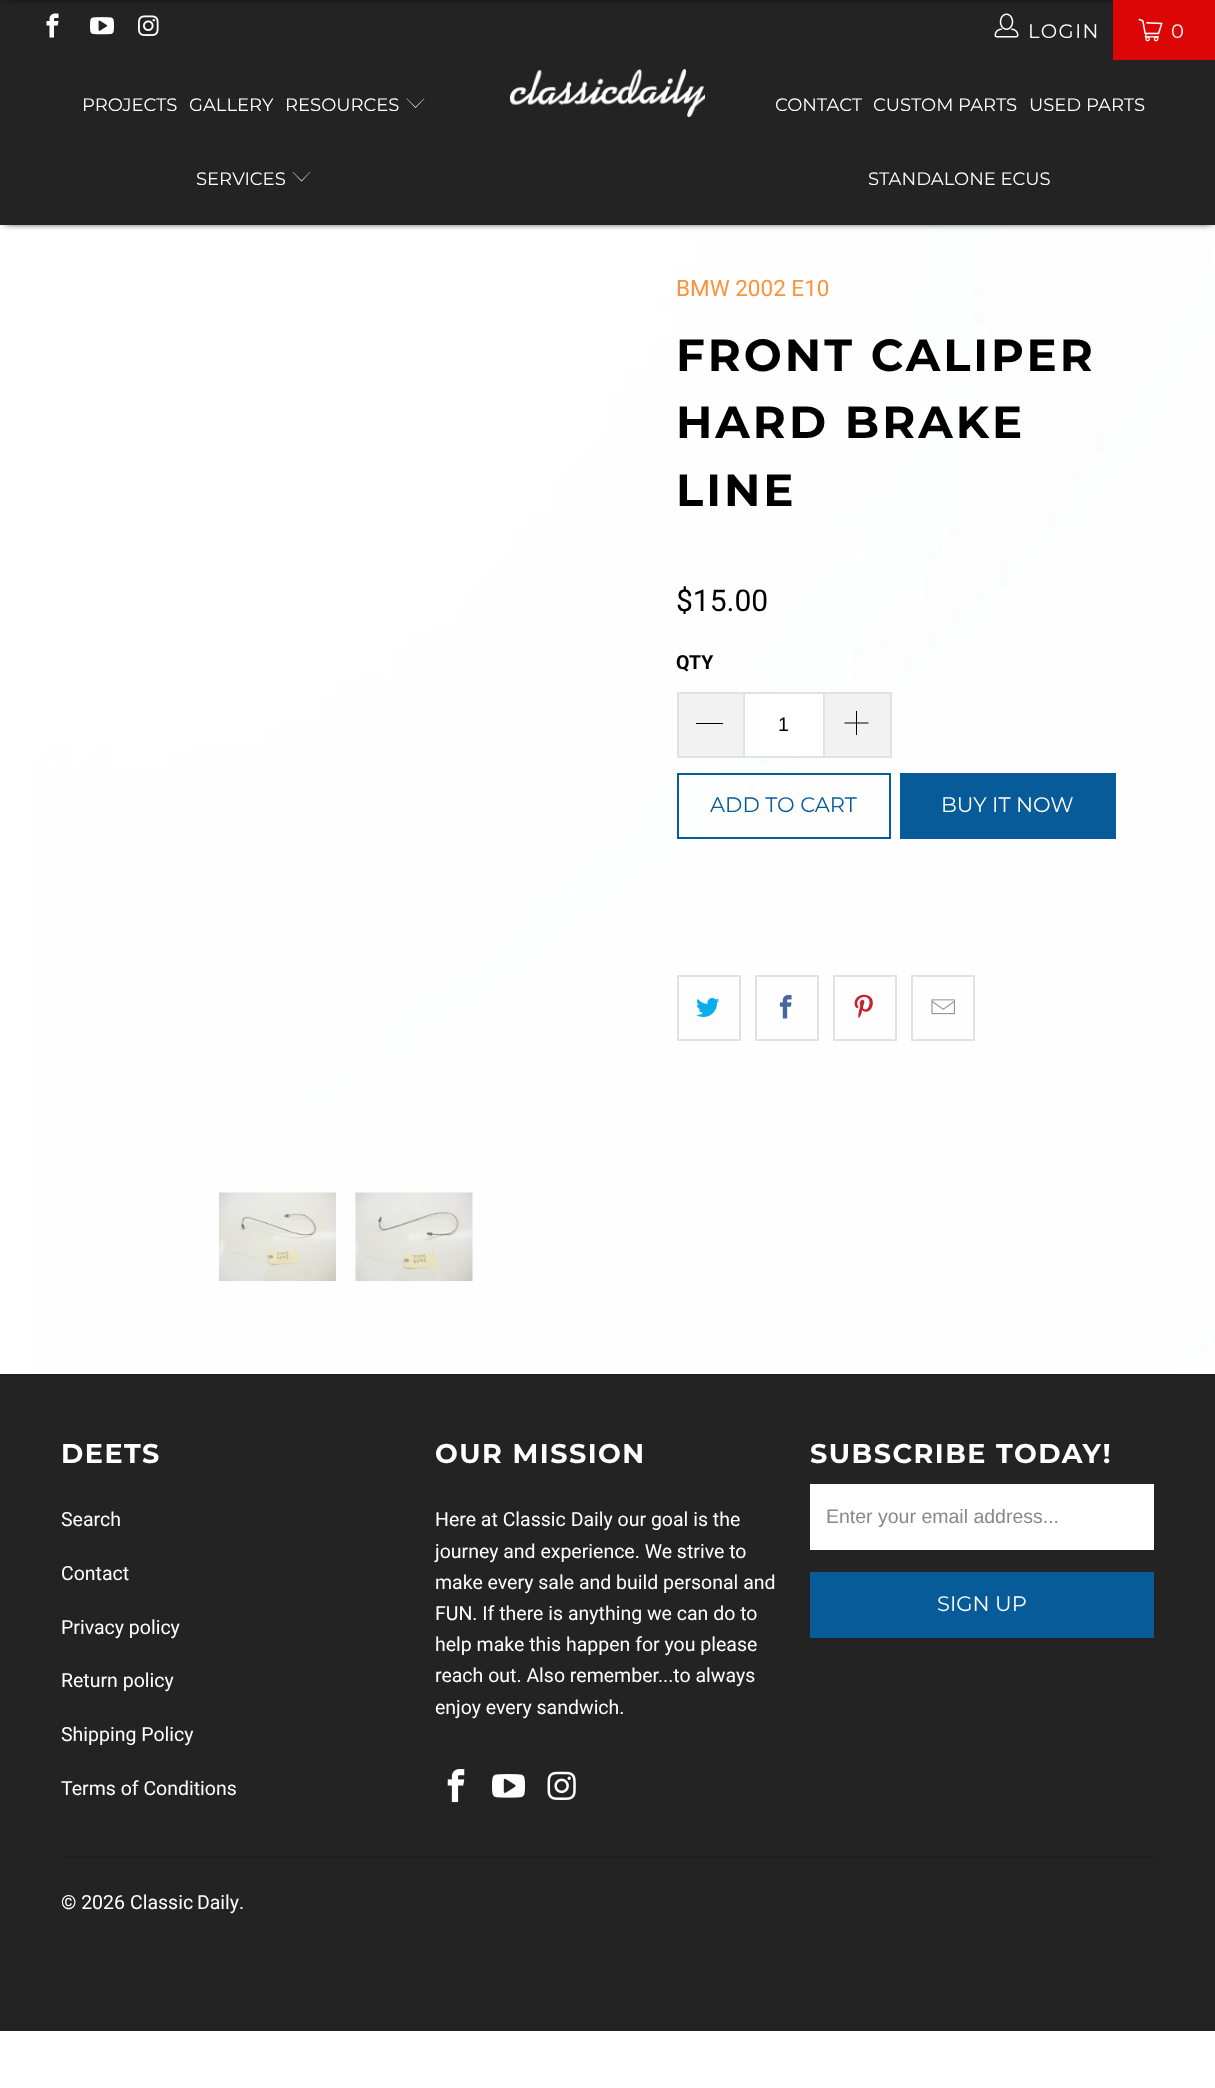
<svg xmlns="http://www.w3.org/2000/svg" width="1215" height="2088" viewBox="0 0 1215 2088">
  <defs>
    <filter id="blur1" x="-50%" y="-200%" width="200%" height="500%"><feGaussianBlur stdDeviation="4.5"/></filter>
  </defs>
  <rect width="100%" height="100%" fill="#ffffff"/>
  <image x="37" y="225" width="1178" height="1149" href="img1.png"/>
  <rect x="5" y="65" width="1206" height="156" fill="#000000" filter="url(#blur1)"/>
  <rect x="5" y="65" width="1206" height="156" fill="#000000" filter="url(#blur1)"/>
  <rect x="0" y="0" width="1113" height="60" fill="#232323"/>
  <rect x="5" y="-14" width="1206" height="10" fill="#000000" filter="url(#blur1)"/>
  <rect x="5" y="-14" width="1206" height="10" fill="#000000" filter="url(#blur1)"/>
  <image x="46" y="13" width="13" height="25" href="img2.png"/>
  <image x="90" y="17" width="24" height="18" href="img3.png"/>
  <image x="138" y="15" width="21" height="21" href="img4.png"/>
  <image x="994" y="13" width="25" height="25" href="img5.png"/>
  <text x="1028" y="38" font-family="Montserrat" font-size="19.5" letter-spacing="1.5" fill="#ffffff">LOGIN</text>
  <rect x="1113" y="0" width="102" height="60" fill="#dd0606"/>
  <image x="1138" y="18" width="25" height="24" href="img6.png"/>
  <text x="1171" y="38" font-family="Montserrat" font-size="19.5" letter-spacing="1.5" fill="#ffffff">0</text>
  <rect x="0" y="60" width="1215" height="165" fill="#232323"/>
  <image x="510" y="69" width="195" height="48" href="img7.png"/>
  <text x="82" y="111" font-family="Montserrat" font-size="18" fill="#ffffff">PROJECTS</text>
  <text x="189" y="111" font-family="Montserrat" font-size="18" fill="#ffffff">GALLERY</text>
  <text x="285" y="111" font-family="Montserrat" font-size="18" fill="#ffffff">RESOURCES</text>
  <path d="M415.5 108L406.5 98.5H407L415.5 107L424 98.5H424.5Z" fill="#ffffff"/>
  <text x="196" y="185" font-family="Montserrat" font-size="18" fill="#ffffff">SERVICES</text>
  <path d="M301.5 181.5L292.5 172H293L301.5 180.5L310 172H310.5Z" fill="#ffffff"/>
  <text x="775" y="111" font-family="Montserrat" font-size="18" fill="#ffffff">CONTACT</text>
  <text x="873" y="111" font-family="Montserrat" font-size="18" fill="#ffffff">CUSTOM PARTS</text>
  <text x="1029" y="111" font-family="Montserrat" font-size="18" fill="#ffffff">USED PARTS</text>
  <text x="868" y="185" font-family="Montserrat" font-size="18" fill="#ffffff">STANDALONE ECUS</text>
  <text x="676" y="296" font-family="Roboto" font-size="22.5" fill="#fa933c">BMW 2002 E10</text>
  <text x="676" y="371" font-family="Montserrat" font-size="45" font-weight="bold" letter-spacing="3" fill="#000000">FRONT CALIPER</text>
  <text x="676" y="438" font-family="Montserrat" font-size="45" font-weight="bold" letter-spacing="3" fill="#000000">HARD BRAKE</text>
  <text x="676" y="506" font-family="Montserrat" font-size="45" font-weight="bold" letter-spacing="3" fill="#000000">LINE</text>
  <text x="676" y="611" font-family="Roboto" font-size="30" fill="#000000">$15.00</text>
  <text x="676" y="669" font-family="Roboto" font-size="19.5" font-weight="bold" fill="#000000">QTY</text>
  <rect x="679" y="694" width="64" height="62" fill="#f2f2f2"/>
  <rect x="677" y="692" width="66" height="2" fill="#e2e2e2"/>
  <rect x="677" y="756" width="66" height="2" fill="#e2e2e2"/>
  <rect x="677" y="692" width="2" height="66" fill="#e2e2e2"/>
  <rect x="696" y="723" width="27" height="1" fill="#000000"/>
  <rect x="757" y="694" width="66" height="62" fill="#ffffff"/>
  <rect x="744" y="693" width="80" height="64" fill="none" stroke="#e2e2e2" stroke-width="2"/>
  <text x="778" y="731" font-family="Liberation Sans" font-size="19.5" fill="#000000">1</text>
  <rect x="825" y="694" width="65" height="62" fill="#f2f2f2"/>
  <rect x="825" y="692" width="66" height="2" fill="#e2e2e2"/>
  <rect x="890" y="692" width="2" height="66" fill="#e2e2e2"/>
  <rect x="825" y="756" width="66" height="2" fill="#e2e2e2"/>
  <image x="844" y="711" width="25" height="24" href="img8.png"/>
  <rect x="678" y="774" width="212" height="64" fill="none" stroke="#075b98" stroke-width="2"/>
  <text x="710" y="812" font-family="Montserrat" font-size="21" fill="#075b98">ADD TO CART</text>
  <rect x="900" y="773" width="216" height="66" fill="#075b98"/>
  <text x="941" y="812" font-family="Montserrat" font-size="21" fill="#ffffff">BUY IT NOW</text>
  <rect x="678" y="976" width="62" height="64" fill="none" stroke="#e2e2e2" stroke-width="2"/>
  <image x="696" y="998" width="24" height="19" href="img9.png"/>
  <rect x="756" y="976" width="62" height="64" fill="none" stroke="#e2e2e2" stroke-width="2"/>
  <image x="779" y="995" width="13" height="24" href="img10.png"/>
  <rect x="834" y="976" width="62" height="64" fill="none" stroke="#e2e2e2" stroke-width="2"/>
  <image x="854" y="994" width="19" height="24" href="img11.png"/>
  <rect x="912" y="976" width="62" height="64" fill="none" stroke="#e2e2e2" stroke-width="2"/>
  <image x="931" y="999" width="24" height="16" href="img12.png"/>
  <image x="219" y="1192" width="117" height="89" href="img13.png"/>
  <image x="355" y="1192" width="118" height="89" href="img14.png"/>
  <rect x="0" y="1376" width="1215" height="655" fill="#232323"/>
  <rect x="0" y="1374" width="1215" height="2" fill="#1b1f23"/>
  <text x="61" y="1463" font-family="Montserrat" font-size="27" font-weight="bold" letter-spacing="1.5" fill="#ffffff">DEETS</text>
  <text x="61" y="1526" font-family="Roboto" font-size="19.5" fill="#ffffff">Search</text>
  <text x="61" y="1580" font-family="Roboto" font-size="19.5" fill="#ffffff">Contact</text>
  <text x="61" y="1634" font-family="Roboto" font-size="19.5" fill="#ffffff">Privacy policy</text>
  <text x="61" y="1687" font-family="Roboto" font-size="19.5" fill="#ffffff">Return policy</text>
  <text x="61" y="1741" font-family="Roboto" font-size="19.5" fill="#ffffff">Shipping Policy</text>
  <text x="61" y="1795" font-family="Roboto" font-size="19.5" fill="#ffffff">Terms of Conditions</text>
  <text x="435" y="1463" font-family="Montserrat" font-size="27" font-weight="bold" letter-spacing="1.5" fill="#ffffff">OUR MISSION</text>
  <text x="435" y="1526" font-family="Roboto" font-size="19.5" fill="#ffffff">Here at Classic Daily our goal is the</text>
  <text x="435" y="1558" font-family="Roboto" font-size="19.5" fill="#ffffff">journey and experience. We strive to</text>
  <text x="435" y="1589" font-family="Roboto" font-size="19.5" fill="#ffffff">make every sale and build personal and</text>
  <text x="435" y="1620" font-family="Roboto" font-size="19.5" fill="#ffffff">FUN. If there is anything we can do to</text>
  <text x="435" y="1651" font-family="Roboto" font-size="19.5" fill="#ffffff">help make this happen for you please</text>
  <text x="435" y="1682" font-family="Roboto" font-size="19.5" fill="#ffffff">reach out. Also remember...to always</text>
  <text x="435" y="1714" font-family="Roboto" font-size="19.5" fill="#ffffff">enjoy every sandwich.</text>
  <image x="447" y="1769" width="18" height="34" href="img15.png"/>
  <image x="492" y="1774" width="33" height="24" href="img16.png"/>
  <image x="547" y="1771" width="29" height="29" href="img17.png"/>
  <text x="810" y="1463" font-family="Montserrat" font-size="27" font-weight="bold" letter-spacing="1.5" fill="#ffffff">SUBSCRIBE TODAY!</text>
  <rect x="810" y="1484" width="344" height="66" fill="#ffffff"/>
  <text x="826" y="1523" font-family="Liberation Sans" font-size="19.5" fill="#888888">Enter your email address...</text>
  <rect x="810" y="1572" width="344" height="66" fill="#075b98"/>
  <text x="937" y="1611" font-family="Montserrat" font-size="21" fill="#ffffff">SIGN UP</text>
  <rect x="62" y="1856" width="1093" height="2" fill="#1b1f23"/>
  <text x="61" y="1909" font-family="Roboto" font-size="19.5" fill="#ffffff">© 2026</text>
  <text x="130" y="1909" word-spacing="-1" font-family="Roboto" font-size="19.5" fill="#ffffff">Classic Daily</text>
  <text x="239" y="1909" font-family="Roboto" font-size="19.5" fill="#ffffff">.</text>
</svg>
